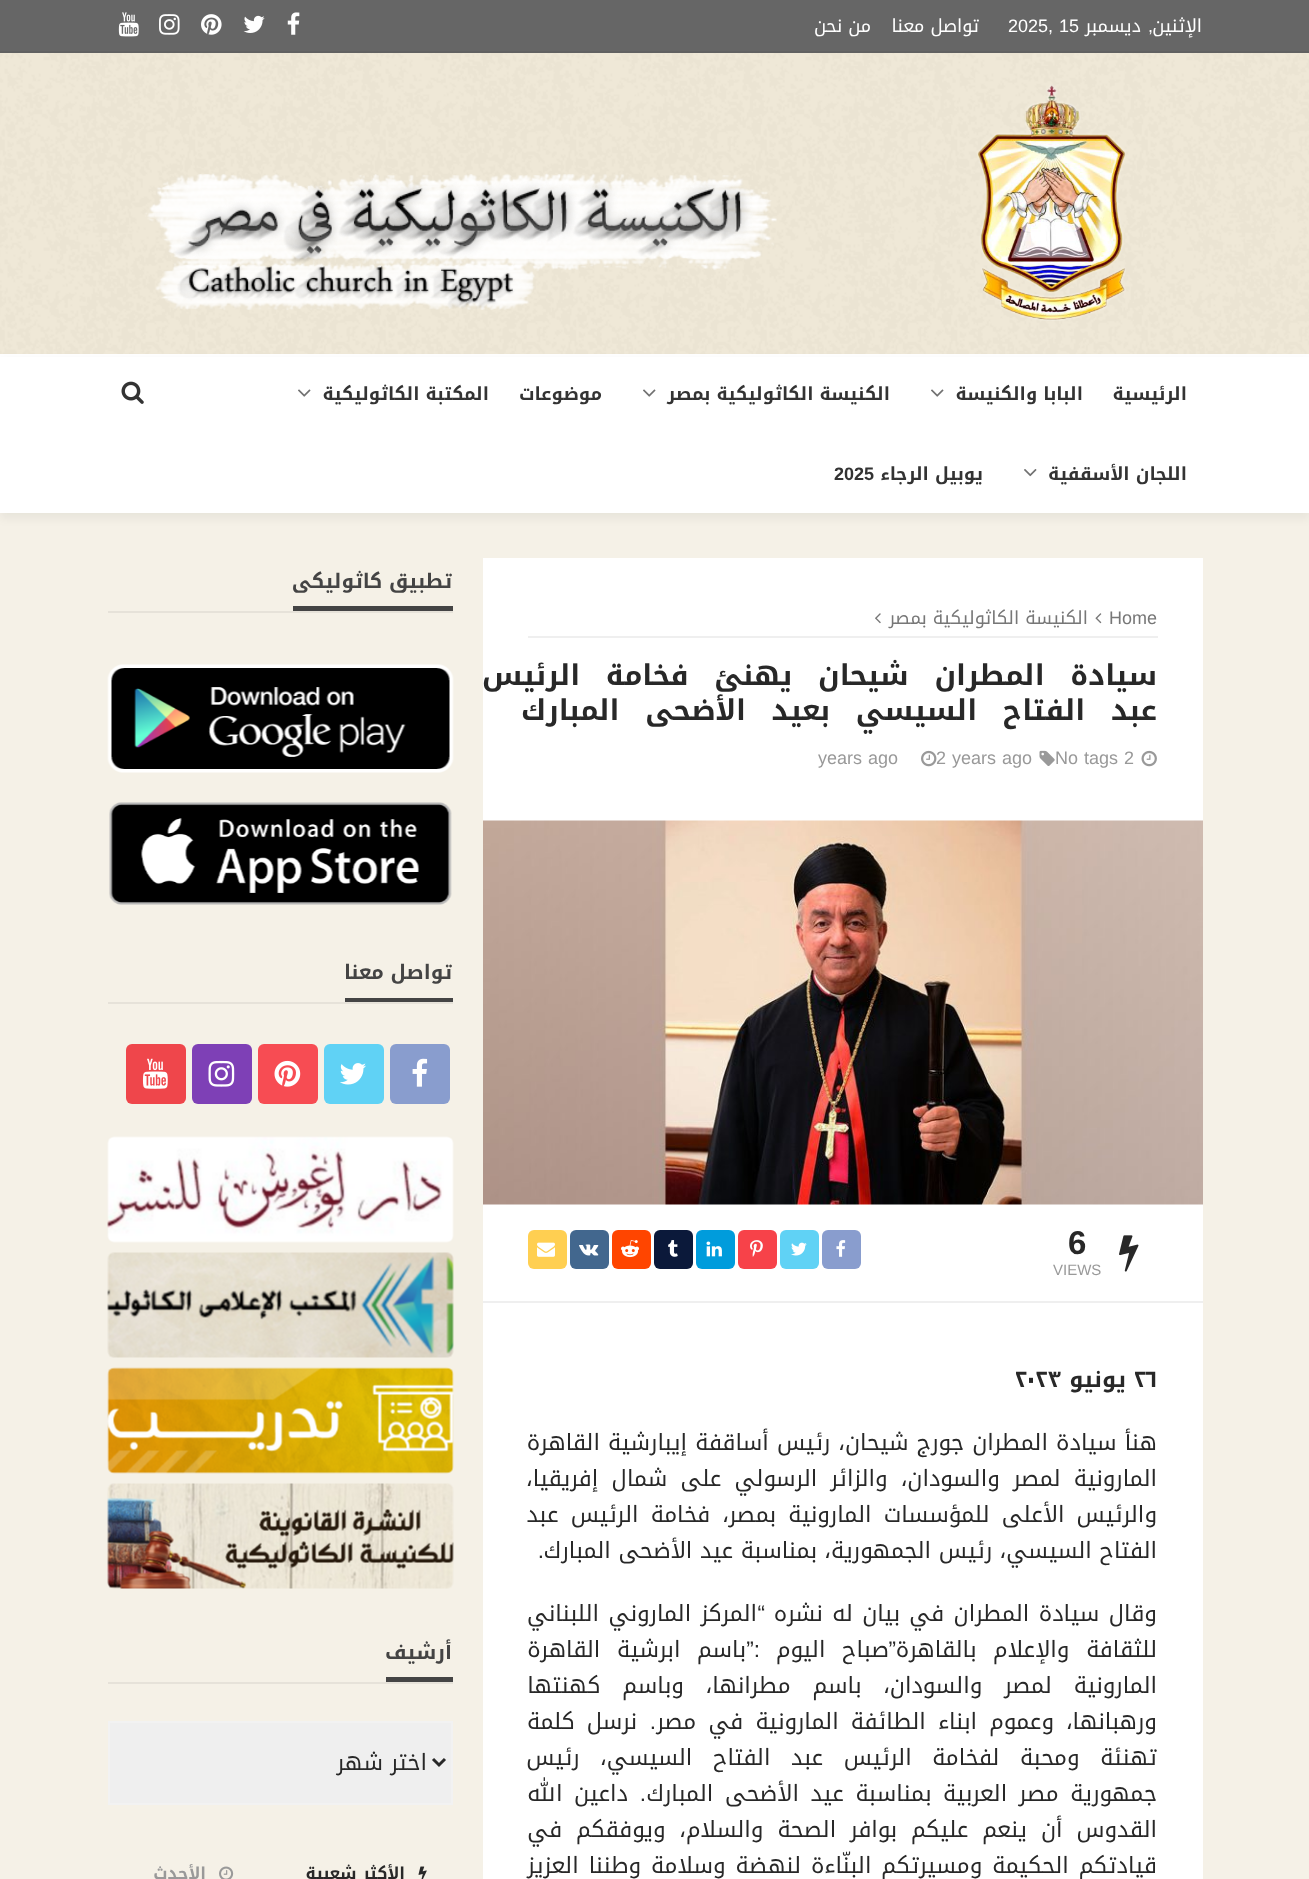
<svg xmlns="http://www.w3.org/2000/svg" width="1309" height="1879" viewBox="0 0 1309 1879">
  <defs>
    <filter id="blur1" x="-50%" y="-200%" width="200%" height="500%"><feGaussianBlur stdDeviation="4.5"/></filter>
  </defs>
  <rect width="100%" height="100%" fill="#ffffff"/>
  <rect x="0" y="0" width="1309" height="51" fill="#666666"/>
  <rect x="0" y="51" width="1309" height="2" fill="#616161"/>
  <text x="1202" y="32" font-family="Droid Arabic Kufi" font-size="18" direction="rtl" fill="#ffffff">الإثنين</text>
  <text x="1153" y="32" font-family="Liberation Sans" font-size="18" direction="rtl" fill="#ffffff">,</text>
  <text x="1141" y="32" font-family="Droid Arabic Kufi" font-size="18" direction="rtl" fill="#ffffff">ديسمبر</text>
  <text x="1059" y="32" font-family="Liberation Sans" font-size="18" fill="#ffffff">15</text>
  <text x="1008" y="32" font-family="Liberation Sans" font-size="18" fill="#ffffff">2025,</text>
  <text x="979" y="32" font-family="Droid Arabic Kufi" font-size="18" direction="rtl" fill="#ffffff">تواصل معنا</text>
  <text x="871" y="32" font-family="Droid Arabic Kufi" font-size="18" direction="rtl" fill="#ffffff">من نحن</text>
  <image x="287" y="12" width="13" height="23" href="img1.png"/>
  <image x="243" y="15" width="22" height="18" href="img2.png"/>
  <image x="201" y="14" width="21" height="21" href="img3.png"/>
  <image x="159" y="14" width="21" height="21" href="img4.png"/>
  <image x="118" y="12" width="21" height="25" href="img5.png"/>
  <image x="0" y="53" width="1309" height="301" href="img6.png"/>
  <image x="977" y="84" width="149" height="237" href="img7.png"/>
  <image x="145" y="173" width="632" height="137" href="img8.png"/>
  <rect x="0" y="513" width="1309" height="1366" fill="#f5f1e7"/>
  <rect x="0" y="360" width="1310" height="159" fill="#1c1c1c" fill-opacity="0.05" filter="url(#blur1)"/>
  <rect x="0" y="357" width="1309" height="156" fill="#ffffff"/>
  <text x="1187" y="400" font-family="Droid Arabic Kufi" font-size="18" font-weight="bold" direction="rtl" fill="#333333">الرئيسية</text>
  <text x="1083" y="400" font-family="Droid Arabic Kufi" font-size="18" font-weight="bold" direction="rtl" fill="#333333">البابا والكنيسة</text>
  <image x="931" y="389" width="13" height="8" href="img9.png"/>
  <text x="890" y="400" font-family="Droid Arabic Kufi" font-size="18" font-weight="bold" direction="rtl" fill="#333333">الكنيسة الكاثوليكية بمصر</text>
  <image x="643" y="389" width="13" height="8" href="img9.png"/>
  <text x="602" y="400" font-family="Droid Arabic Kufi" font-size="18" font-weight="bold" direction="rtl" fill="#333333">موضوعات</text>
  <text x="489" y="400" font-family="Droid Arabic Kufi" font-size="18" font-weight="bold" direction="rtl" fill="#333333">المكتبة الكاثوليكية</text>
  <image x="298" y="389" width="13" height="8" href="img9.png"/>
  <text x="1187" y="480" font-family="Droid Arabic Kufi" font-size="18" font-weight="bold" direction="rtl" fill="#333333">اللجان الأسقفية</text>
  <image x="1024" y="469" width="13" height="8" href="img10.png"/>
  <text x="983" y="480" font-family="Droid Arabic Kufi" font-size="18" font-weight="bold" direction="rtl" fill="#333333">يوبيل الرجاء</text>
  <text x="834" y="480" font-family="Liberation Sans" font-size="18" font-weight="bold" fill="#333333">2025</text>
  <image x="121" y="381" width="23" height="23" href="img11.png"/>
  <rect x="483" y="558" width="720" height="1321" fill="#ffffff"/>
  <rect x="528" y="636" width="630" height="2" fill="#efefef"/>
  <text x="1109" y="624" font-family="Liberation Sans" font-size="18" fill="#777777">Home</text>
  <image x="1095" y="613" width="7" height="11" href="img12.png"/>
  <text x="1088" y="624" font-family="Droid Arabic Kufi" font-size="18" direction="rtl" fill="#777777">الكنيسة الكاثوليكية بمصر</text>
  <image x="875" y="613" width="6" height="11" href="img13.png"/>
  <text x="1157" y="685" word-spacing="16" font-family="Droid Arabic Kufi" font-size="28.5" font-weight="bold" letter-spacing="-2.15" direction="rtl" fill="#282828">سيادة المطران شيحان يهنئ فخامة الرئيس</text>
  <text x="1157" y="720" word-spacing="16" font-family="Droid Arabic Kufi" font-size="28.5" font-weight="bold" letter-spacing="-2.15" direction="rtl" fill="#282828">عبد الفتاح السيسي بعيد الأضحى المبارك</text>
  <image x="1141" y="750" width="16" height="17" href="img14.png"/>
  <text x="1124" y="764" font-family="Liberation Sans" font-size="18" fill="#999999">2</text>
  <text x="818" y="764" word-spacing="1" font-family="Liberation Sans" font-size="18" fill="#999999">years ago</text>
  <text x="1055" y="764" word-spacing="1" font-family="Liberation Sans" font-size="18" fill="#999999">No tags</text>
  <image x="1039" y="750" width="16" height="16" href="img15.png"/>
  <image x="921" y="750" width="16" height="17" href="img16.png"/>
  <text x="936" y="764" word-spacing="1" font-family="Liberation Sans" font-size="18" fill="#999999">2 years ago</text>
  <image x="483" y="820" width="720" height="385" href="img17.png"/>
  <rect x="483" y="1301" width="720" height="2" fill="#efefef"/>
  <image x="1119" y="1235" width="20" height="37" href="img18.png"/>
  <text x="1068" y="1254" font-family="Liberation Sans" font-size="33" font-weight="bold" fill="#282828">6</text>
  <text x="1053" y="1275" font-family="Liberation Sans" font-size="15" fill="#999999">VIEWS</text>
  <rect x="822" y="1230" width="39" height="39" rx="6" fill="#899dce"/>
  <image x="836" y="1240" width="10" height="17" href="img19.png"/>
  <rect x="780" y="1230" width="39" height="39" rx="6" fill="#60d2f5"/>
  <image x="791" y="1242" width="16" height="14" href="img20.png"/>
  <rect x="738" y="1230" width="39" height="39" rx="6" fill="#f74249"/>
  <image x="750" y="1240" width="13" height="17" href="img21.png"/>
  <rect x="696" y="1230" width="39" height="39" rx="6" fill="#009cdc"/>
  <image x="706" y="1241" width="16" height="16" href="img22.png"/>
  <rect x="654" y="1230" width="39" height="39" rx="6" fill="#0b193a"/>
  <image x="668" y="1240" width="10" height="17" href="img23.png"/>
  <rect x="612" y="1230" width="39" height="39" rx="6" fill="#ff4500"/>
  <image x="621" y="1240" width="18" height="18" href="img24.png"/>
  <rect x="570" y="1230" width="39" height="39" rx="6" fill="#42678e"/>
  <image x="579" y="1244" width="20" height="12" href="img25.png"/>
  <rect x="528" y="1230" width="39" height="39" rx="6" fill="#ffcf51"/>
  <image x="537" y="1242" width="18" height="15" href="img26.png"/>
  <text x="1134" y="1387" font-family="Droid Arabic Kufi" font-size="22.5" font-weight="bold" fill="#282828">٢٦</text>
  <text x="1126" y="1387" font-family="Droid Arabic Kufi" font-size="22.5" font-weight="bold" direction="rtl" fill="#282828">يونيو</text>
  <text x="1015" y="1387" font-family="Droid Arabic Kufi" font-size="22.5" font-weight="bold" fill="#282828">٢٠٢٣</text>
  <text x="1157" y="1450" word-spacing="0.5" font-family="Droid Arabic Kufi" font-size="22.5" direction="rtl" fill="#282828">هنأ سيادة المطران جورج شيحان، رئيس أساقفة إيبارشية القاهرة</text>
  <text x="1157" y="1486" word-spacing="5.5" font-family="Droid Arabic Kufi" font-size="22.5" direction="rtl" fill="#282828">المارونية لمصر والسودان، والزائر الرسولي على شمال إفريقيا،</text>
  <text x="1157" y="1522" word-spacing="4.5" font-family="Droid Arabic Kufi" font-size="22.5" direction="rtl" fill="#282828">والرئيس الأعلى للمؤسسات المارونية بمصر، فخامة الرئيس عبد</text>
  <text x="1157" y="1558" font-family="Droid Arabic Kufi" font-size="22.5" direction="rtl" fill="#282828">الفتاح السيسي، رئيس الجمهورية، بمناسبة عيد الأضحى المبارك</text>
  <text x="544" y="1558" font-family="Liberation Sans" font-size="22.5" direction="rtl" fill="#282828">.</text>
  <text x="1157" y="1621" word-spacing="1.75" font-family="Droid Arabic Kufi" font-size="22.5" direction="rtl" fill="#282828">وقال سيادة المطران في بيان له نشره</text>
  <text x="765" y="1621" font-family="Liberation Sans" font-size="22.5" direction="rtl" fill="#282828">“</text>
  <text x="757" y="1621" word-spacing="1.75" font-family="Droid Arabic Kufi" font-size="22.5" direction="rtl" fill="#282828">المركز الماروني اللبناني</text>
  <text x="1157" y="1657" word-spacing="9" font-family="Droid Arabic Kufi" font-size="22.5" direction="rtl" fill="#282828">للثقافة والإعلام بالقاهرة</text>
  <text x="896" y="1657" font-family="Liberation Sans" font-size="22.5" direction="rtl" fill="#282828">”</text>
  <text x="889" y="1657" word-spacing="9" font-family="Droid Arabic Kufi" font-size="22.5" direction="rtl" fill="#282828">صباح اليوم</text>
  <text x="760" y="1657" font-family="Liberation Sans" font-size="22.5" direction="rtl" fill="#282828">:”</text>
  <text x="746" y="1657" word-spacing="9" font-family="Droid Arabic Kufi" font-size="22.5" direction="rtl" fill="#282828">باسم ابرشية القاهرة</text>
  <text x="1157" y="1693" word-spacing="14.25" font-family="Droid Arabic Kufi" font-size="22.5" direction="rtl" fill="#282828">المارونية لمصر والسودان، باسم مطرانها، وباسم كهنتها</text>
  <text x="1157" y="1729" word-spacing="4.5" font-family="Droid Arabic Kufi" font-size="22.5" direction="rtl" fill="#282828">ورهبانها، وعموم ابناء الطائفة المارونية في مصر</text>
  <text x="656" y="1729" font-family="Liberation Sans" font-size="22.5" direction="rtl" fill="#282828">.</text>
  <text x="637" y="1729" word-spacing="4.5" font-family="Droid Arabic Kufi" font-size="22.5" direction="rtl" fill="#282828">نرسل كلمة</text>
  <text x="1157" y="1765" word-spacing="13" font-family="Droid Arabic Kufi" font-size="22.5" direction="rtl" fill="#282828">تهنئة ومحبة لفخامة الرئيس عبد الفتاح السيسي، رئيس</text>
  <text x="1157" y="1801" word-spacing="4" font-family="Droid Arabic Kufi" font-size="22.5" direction="rtl" fill="#282828">جمهورية مصر العربية بمناسبة عيد الأضحى المبارك</text>
  <text x="646" y="1801" font-family="Liberation Sans" font-size="22.5" direction="rtl" fill="#282828">.</text>
  <text x="628" y="1801" word-spacing="4" font-family="Droid Arabic Kufi" font-size="22.5" direction="rtl" fill="#282828">داعين الله</text>
  <text x="1157" y="1837" word-spacing="6.25" font-family="Droid Arabic Kufi" font-size="22.5" direction="rtl" fill="#282828">القدوس أن ينعم عليكم بوافر الصحة والسلام، ويوفقكم في</text>
  <text x="1157" y="1873" word-spacing="2.25" font-family="Droid Arabic Kufi" font-size="22.5" direction="rtl" fill="#282828">قيادتكم الحكيمة ومسيرتكم البنّاءة لنهضة وسلامة وطننا العزيز</text>
  <rect x="108" y="611" width="345" height="2" fill="#e6e2d9"/>
  <rect x="293" y="606" width="160" height="5" fill="#444444"/>
  <text x="452" y="588" font-family="Droid Arabic Kufi" font-size="20" font-weight="bold" direction="rtl" fill="#444444">تطبيق كاثوليكى</text>
  <image x="107" y="664" width="347" height="109" href="img27.png"/>
  <image x="109" y="802" width="343" height="103" href="img28.png"/>
  <rect x="108" y="1002" width="345" height="2" fill="#e6e2d9"/>
  <rect x="345" y="998" width="108" height="4" fill="#444444"/>
  <text x="452" y="979" font-family="Droid Arabic Kufi" font-size="20" font-weight="bold" direction="rtl" fill="#444444">تواصل معنا</text>
  <rect x="390" y="1044" width="60" height="60" rx="6" fill="#899dce"/>
  <image x="412" y="1058" width="16" height="29" href="img29.png"/>
  <rect x="324" y="1044" width="60" height="60" rx="6" fill="#60d2f5"/>
  <image x="340" y="1063" width="26" height="22" href="img30.png"/>
  <rect x="258" y="1044" width="60" height="60" rx="6" fill="#f74c53"/>
  <image x="274" y="1060" width="27" height="27" href="img31.png"/>
  <rect x="192" y="1044" width="60" height="60" rx="6" fill="#7e40b6"/>
  <image x="208" y="1060" width="27" height="27" href="img32.png"/>
  <rect x="126" y="1044" width="60" height="60" rx="6" fill="#ef464b"/>
  <image x="142" y="1058" width="26" height="31" href="img33.png"/>
  <image x="107" y="1136" width="347" height="107" href="img34.png"/>
  <image x="107" y="1252" width="347" height="106" href="img35.png"/>
  <image x="107" y="1367" width="347" height="107" href="img36.png"/>
  <image x="107" y="1483" width="347" height="106" href="img37.png"/>
  <rect x="108" y="1682" width="345" height="2" fill="#e6e2d9"/>
  <rect x="386" y="1677" width="67" height="5" fill="#444444"/>
  <text x="452" y="1659" font-family="Droid Arabic Kufi" font-size="20" font-weight="bold" direction="rtl" fill="#444444">أرشيف</text>
  <rect x="109" y="1722" width="343" height="82" fill="#efefef" stroke="#f2f2f2" stroke-width="2"/>
  <path d="M433 1759L439 1765L445 1759" fill="none" stroke="#282828" stroke-width="3"/>
  <text x="427" y="1770" font-family="Droid Arabic Kufi" font-size="22.5" direction="rtl" fill="#282828">اختر شهر</text>
  <image x="418" y="1866" width="9" height="13" href="img38.png"/>
  <text x="405" y="1879" font-family="Droid Arabic Kufi" font-size="16.5" font-weight="bold" direction="rtl" fill="#282828">الأكثر شعبية</text>
  <image x="219" y="1866" width="15" height="13" href="img39.png"/>
  <text x="206" y="1879" font-family="Droid Arabic Kufi" font-size="16.5" font-weight="bold" direction="rtl" fill="#999999">الأحدث</text>
</svg>
